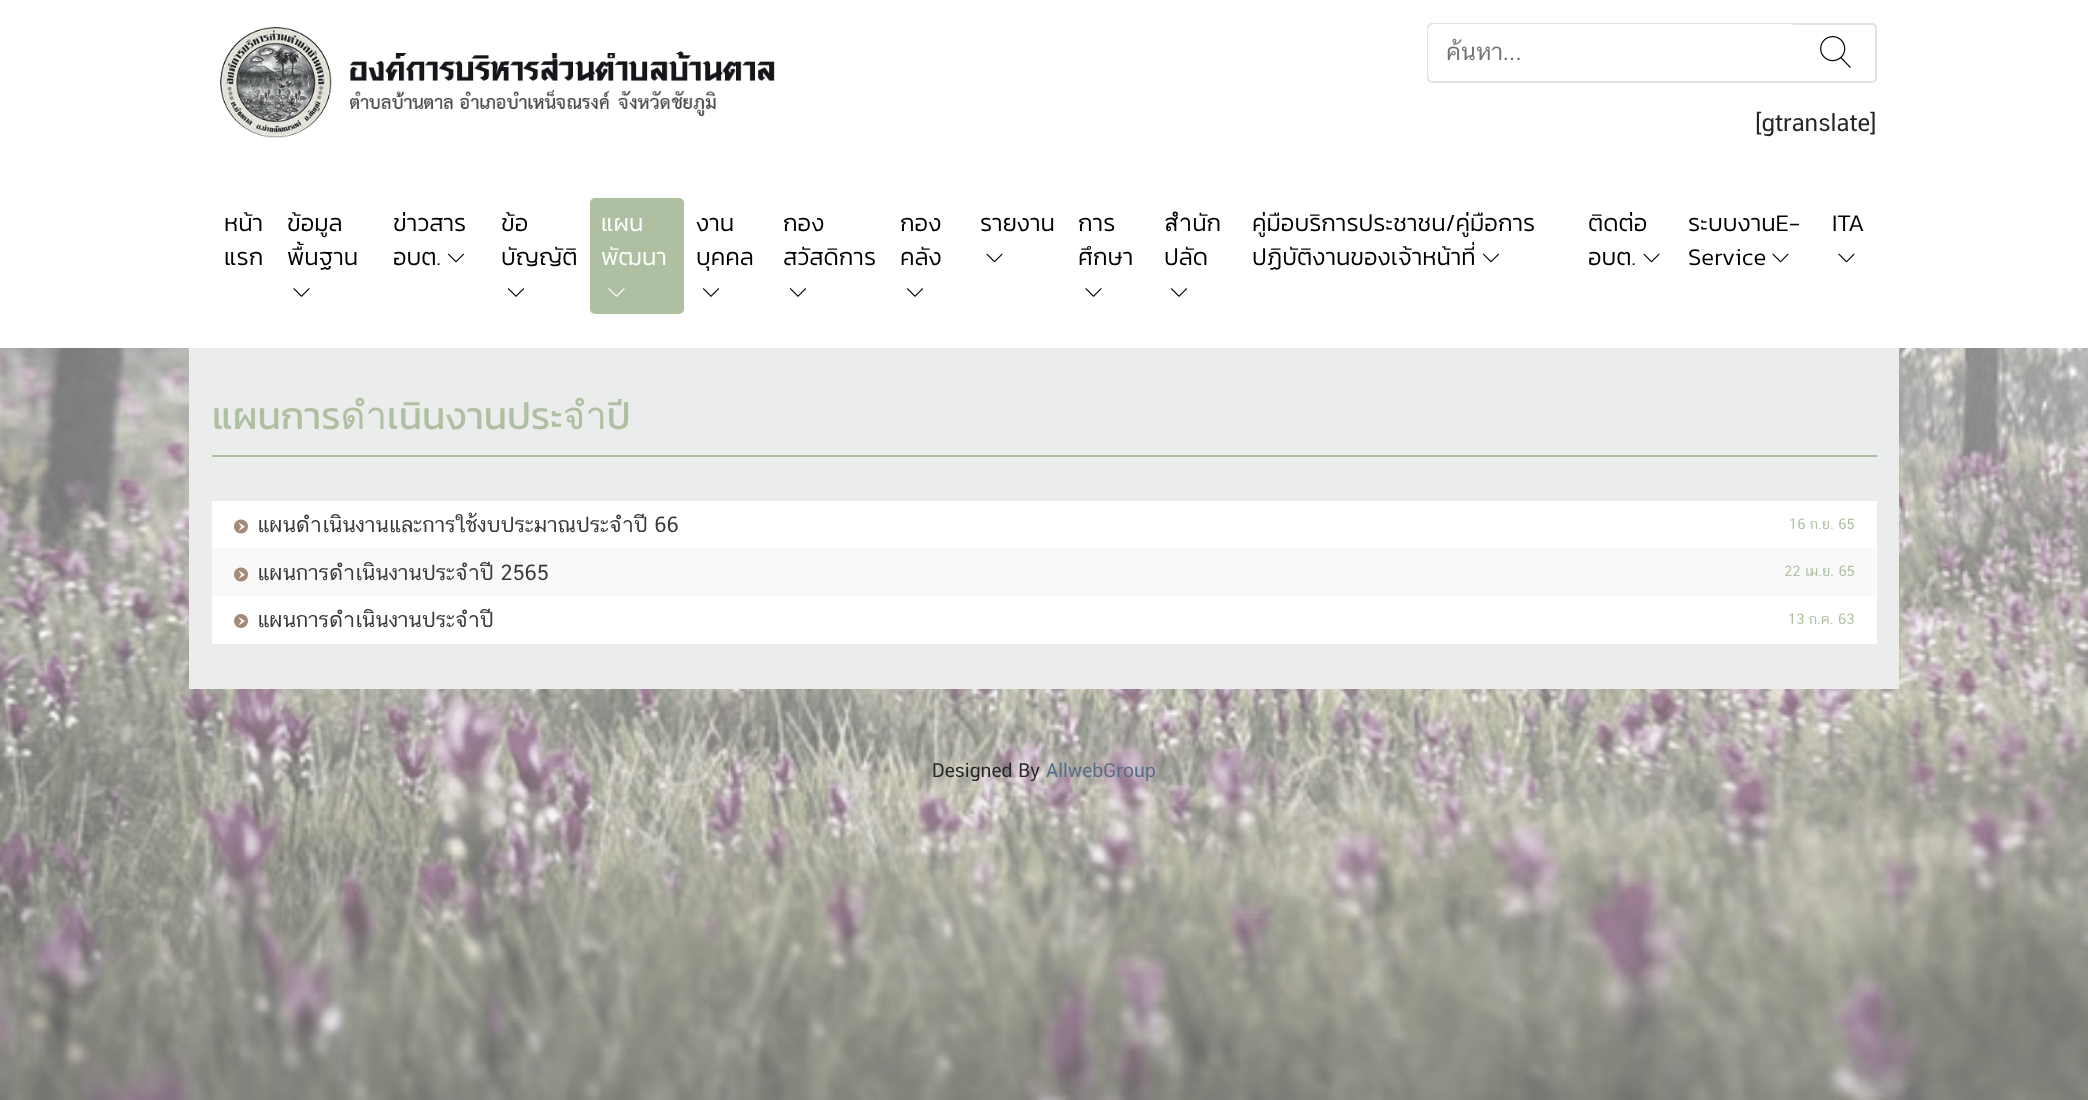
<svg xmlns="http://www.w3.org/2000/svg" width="2088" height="1100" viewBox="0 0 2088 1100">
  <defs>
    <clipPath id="clip1"><rect x="1446" y="38" width="326" height="30"/></clipPath>
  </defs>
  <rect width="100%" height="100%" fill="#ffffff"/>
  <image x="0" y="348" width="2088" height="752" href="img1.png"/>
  <image x="220" y="27" width="555" height="111" href="img2.png"/>
  <rect x="1428" y="24" width="448" height="58" rx="4" fill="none" stroke="#e1e2e2" stroke-width="2"/>
  <rect x="1428" y="24" width="368" height="57" rx="6" fill="#ffffff"/>
  <g clip-path="url(#clip1)">
    <text x="1446" y="60" font-family="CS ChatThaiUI" font-size="24" fill="#727476">ค้นหา...</text>
  </g>
  <image x="1820" y="36" width="31" height="32" href="img3.png"/>
  <text x="1755" y="131" font-family="CS ChatThaiUI" font-size="24" fill="#242525">[gtranslate]</text>
  <text x="224" y="231" font-family="Kanit" font-size="24" font-weight="300" fill="#000000">หน้า</text>
  <text x="224" y="265" font-family="Kanit" font-size="24" font-weight="300" fill="#000000">แรก</text>
  <text x="287" y="231" font-family="Kanit" font-size="24" font-weight="300" fill="#000000">ข้อมูล</text>
  <text x="287" y="265" font-family="Kanit" font-size="24" font-weight="300" fill="#000000">พื้นฐาน</text>
  <image x="293" y="288" width="17" height="9" href="img4.png"/>
  <text x="393" y="231" font-family="Kanit" font-size="24" font-weight="300" fill="#000000">ข่าวสาร</text>
  <text x="393" y="265" font-family="Kanit" font-size="24" font-weight="300" fill="#000000">อบต.</text>
  <image x="447" y="253" width="17" height="10" href="img5.png"/>
  <text x="501" y="231" font-family="Kanit" font-size="24" font-weight="300" fill="#000000">ข้อ</text>
  <text x="501" y="265" font-family="Kanit" font-size="24" font-weight="300" fill="#000000">บัญญัติ</text>
  <image x="507" y="288" width="17" height="9" href="img6.png"/>
  <rect x="590" y="198" width="94" height="116" rx="5" fill="#afc0a2"/>
  <text x="601" y="231" font-family="Kanit" font-size="24" font-weight="300" fill="#ffffff">แผน</text>
  <text x="601" y="265" font-family="Kanit" font-size="24" font-weight="300" fill="#ffffff">พัฒนา</text>
  <image x="608" y="288" width="17" height="9" href="img7.png"/>
  <text x="696" y="231" font-family="Kanit" font-size="24" font-weight="300" fill="#000000">งาน</text>
  <text x="696" y="265" font-family="Kanit" font-size="24" font-weight="300" fill="#000000">บุคคล</text>
  <image x="702" y="288" width="17" height="9" href="img6.png"/>
  <text x="783" y="231" font-family="Kanit" font-size="24" font-weight="300" fill="#000000">กอง</text>
  <text x="783" y="265" font-family="Kanit" font-size="24" font-weight="300" fill="#000000">สวัสดิการ</text>
  <image x="789" y="288" width="17" height="9" href="img6.png"/>
  <text x="900" y="231" font-family="Kanit" font-size="24" font-weight="300" fill="#000000">กอง</text>
  <text x="900" y="265" font-family="Kanit" font-size="24" font-weight="300" fill="#000000">คลัง</text>
  <image x="906" y="288" width="17" height="9" href="img6.png"/>
  <text x="980" y="231" font-family="Kanit" font-size="24" font-weight="300" fill="#000000">รายงาน</text>
  <image x="986" y="253" width="17" height="10" href="img8.png"/>
  <text x="1078" y="231" font-family="Kanit" font-size="24" font-weight="300" fill="#000000">การ</text>
  <text x="1078" y="265" font-family="Kanit" font-size="24" font-weight="300" fill="#000000">ศึกษา</text>
  <image x="1085" y="288" width="17" height="9" href="img4.png"/>
  <text x="1164" y="231" font-family="Kanit" font-size="24" font-weight="300" fill="#000000">สำนัก</text>
  <text x="1164" y="265" font-family="Kanit" font-size="24" font-weight="300" fill="#000000">ปลัด</text>
  <image x="1170" y="288" width="17" height="9" href="img6.png"/>
  <text x="1252" y="231" font-family="Kanit" font-size="24" font-weight="300" fill="#000000">คู่มือบริการประชาชน/คู่มือการ</text>
  <text x="1252" y="265" font-family="Kanit" font-size="24" font-weight="300" fill="#000000">ปฏิบัติงานของเจ้าหน้าที่</text>
  <image x="1482" y="253" width="17" height="10" href="img5.png"/>
  <text x="1588" y="231" font-family="Kanit" font-size="24" font-weight="300" fill="#000000">ติดต่อ</text>
  <text x="1588" y="265" font-family="Kanit" font-size="24" font-weight="300" fill="#000000">อบต.</text>
  <image x="1643" y="253" width="17" height="10" href="img8.png"/>
  <text x="1688" y="231" font-family="Kanit" font-size="24" font-weight="300" fill="#000000">ระบบงานE-</text>
  <text x="1688" y="265" font-family="Kanit" font-size="24" font-weight="300" fill="#000000">Service</text>
  <image x="1772" y="253" width="17" height="10" href="img8.png"/>
  <text x="1832" y="231" font-family="Kanit" font-size="24" font-weight="300" fill="#000000">ITA</text>
  <image x="1838" y="253" width="17" height="10" href="img8.png"/>
  <rect x="189" y="348" width="1710" height="341" fill="#ebecec"/>
  <rect x="212" y="455" width="1665" height="2" fill="#afc0a2"/>
  <text x="212" y="429" font-family="Kanit" font-size="38.4" fill="#afc0a2">แผนการดำเนินงานประจำปี</text>
  <rect x="212" y="501" width="1665" height="47" fill="#ffffff"/>
  <image x="234" y="519" width="14" height="15" href="img9.png"/>
  <text x="257" y="532" font-family="CS ChatThaiUI" font-size="21.6" fill="#38393b">แผนดำเนินงานและการใช้งบประมาณประจำปี 66</text>
  <text x="1789" y="529" font-family="CS ChatThaiUI" font-size="14.5" fill="#afc0a2">16 ก.ย. 65</text>
  <rect x="212" y="548" width="1665" height="48" fill="#f9f9f9"/>
  <image x="234" y="567" width="14" height="15" href="img10.png"/>
  <text x="257" y="580" font-family="CS ChatThaiUI" font-size="21.6" fill="#38393b">แผนการดำเนินงานประจำปี 2565</text>
  <text x="1784" y="576" font-family="CS ChatThaiUI" font-size="14.5" fill="#afc0a2">22 เม.ย. 65</text>
  <rect x="212" y="596" width="1665" height="48" fill="#ffffff"/>
  <image x="234" y="614" width="14" height="14" href="img11.png"/>
  <text x="257" y="627" font-family="CS ChatThaiUI" font-size="21.6" fill="#38393b">แผนการดำเนินงานประจำปี</text>
  <text x="1788" y="624" font-family="CS ChatThaiUI" font-size="14.5" fill="#afc0a2">13 ก.ค. 63</text>
  <text x="932" y="777" font-family="CS ChatThaiUI" font-size="19.25" fill="#242525">Designed By</text>
  <text x="1046" y="777" font-family="CS ChatThaiUI" font-size="19.25" fill="#556e88">AllwebGroup</text>
</svg>
